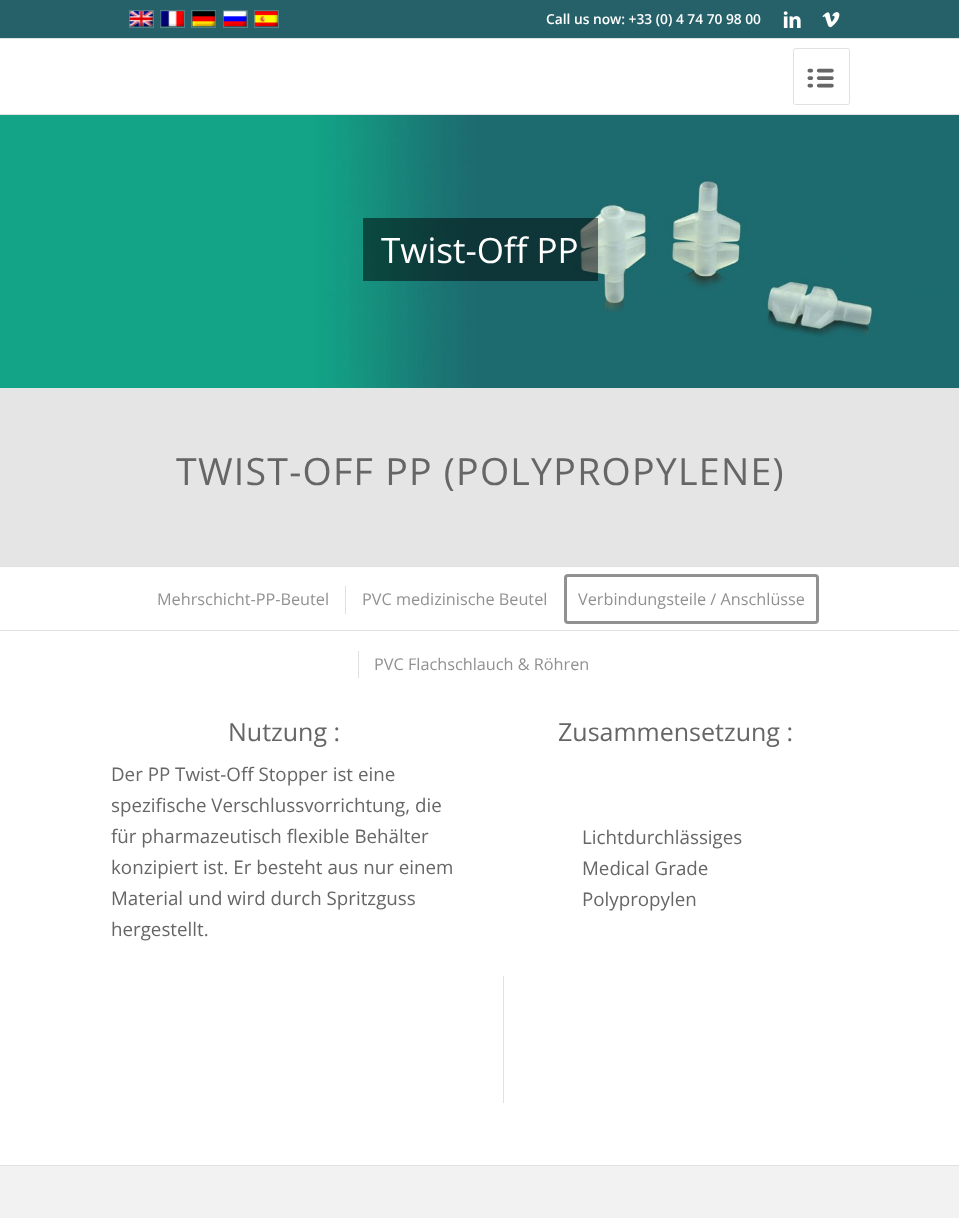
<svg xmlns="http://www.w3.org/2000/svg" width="959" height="1218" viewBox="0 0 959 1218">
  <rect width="100%" height="100%" fill="#ffffff"/>
  <rect x="0" y="0" width="959" height="38" fill="#266169"/>
  <rect x="0" y="38" width="959" height="1" fill="#e1e1e1"/>
  <rect x="129.5" y="10.5" width="24" height="17" fill="none" stroke="#518187"/>
  <image x="129" y="11" width="24" height="16" href="img1.png"/>
  <rect x="160.5" y="10.5" width="24" height="17" fill="none" stroke="#518187"/>
  <image x="160" y="11" width="24" height="16" href="img2.png"/>
  <rect x="191.5" y="10.5" width="24" height="17" fill="none" stroke="#518187"/>
  <image x="191" y="11" width="25" height="16" href="img3.png"/>
  <rect x="223.5" y="10.5" width="24" height="17" fill="none" stroke="#518187"/>
  <image x="223" y="11" width="24" height="16" href="img4.png"/>
  <rect x="254.5" y="10.5" width="24" height="17" fill="none" stroke="#518187"/>
  <image x="254" y="11" width="24" height="16" href="img5.png"/>
  <text x="546" y="24" font-family="Open Sans" font-size="13.75" font-weight="600" fill="#ffffff">Call us now: +33 (0) 4 74 70 98 00</text>
  <image x="783" y="11" width="18" height="17" href="img6.png"/>
  <image x="822" y="12" width="18" height="16" href="img7.png"/>
  <rect x="0" y="114" width="959" height="1" fill="#e1e1e1"/>
  <rect x="793.5" y="48.5" width="56" height="56" rx="2" fill="none" stroke="#e1e1e1"/>
  <image x="807" y="68" width="27" height="20" href="img8.png"/>
  <image x="0" y="115" width="959" height="273" href="img9.png"/>
  <rect x="363" y="218" width="235" height="63" fill="#000000" fill-opacity="0.5"/>
  <text x="381" y="263" font-family="Open Sans" font-size="35" fill="#ffffff">Twist-Off PP</text>
  <rect x="0" y="388" width="959" height="178" fill="#e5e5e5"/>
  <text x="176" y="485" font-family="Open Sans" font-size="37.5" letter-spacing="1.25" fill="#666666">TWIST-OFF PP (POLYPROPYLENE)</text>
  <rect x="0" y="566" width="959" height="1" fill="#e1e1e1"/>
  <rect x="0" y="630" width="959" height="1" fill="#e1e1e1"/>
  <text x="157" y="605" font-family="Open Sans" font-size="16.25" fill="#919191">Mehrschicht-PP-Beutel</text>
  <rect x="345" y="586" width="1" height="28" fill="#e1e1e1"/>
  <text x="362" y="605" font-family="Open Sans" font-size="16.25" fill="#919191">PVC medizinische Beutel</text>
  <rect x="565.5" y="575.5" width="252" height="47" rx="2.5" fill="none" stroke="#919191" stroke-width="3"/>
  <text x="578" y="605" font-family="Open Sans" font-size="16.25" fill="#919191">Verbindungsteile / Anschlüsse</text>
  <rect x="358" y="651" width="1" height="27" fill="#e1e1e1"/>
  <text x="374" y="670" font-family="Open Sans" font-size="16.25" fill="#919191">PVC Flachschlauch &amp; Röhren</text>
  <text x="228" y="741" font-family="Open Sans" font-size="25" fill="#666666">Nutzung :</text>
  <text x="111" y="781" font-family="Open Sans" font-size="18.75" fill="#666666">Der PP Twist-Off Stopper ist eine</text>
  <text x="111" y="812" font-family="Open Sans" font-size="18.75" fill="#666666">spezifische Verschlussvorrichtung, die</text>
  <text x="111" y="843" font-family="Open Sans" font-size="18.75" fill="#666666">für pharmazeutisch flexible Behälter</text>
  <text x="111" y="874" font-family="Open Sans" font-size="18.75" fill="#666666">konzipiert ist. Er besteht aus nur einem</text>
  <text x="111" y="905" font-family="Open Sans" font-size="18.75" fill="#666666">Material und wird durch Spritzguss</text>
  <text x="111" y="936" font-family="Open Sans" font-size="18.75" fill="#666666">hergestellt.</text>
  <text x="558" y="741" font-family="Open Sans" font-size="25" fill="#666666">Zusammensetzung :</text>
  <text x="582" y="844" font-family="Open Sans" font-size="18.75" fill="#666666">Lichtdurchlässiges</text>
  <text x="582" y="875" font-family="Open Sans" font-size="18.75" fill="#666666">Medical Grade</text>
  <text x="582" y="906" font-family="Open Sans" font-size="18.75" fill="#666666">Polypropylen</text>
  <rect x="503" y="976" width="1" height="127" fill="#e1e1e1"/>
  <rect x="0" y="1166" width="959" height="52" fill="#f2f2f2"/>
  <rect x="0" y="1165" width="959" height="1" fill="#e1e1e1"/>
</svg>
